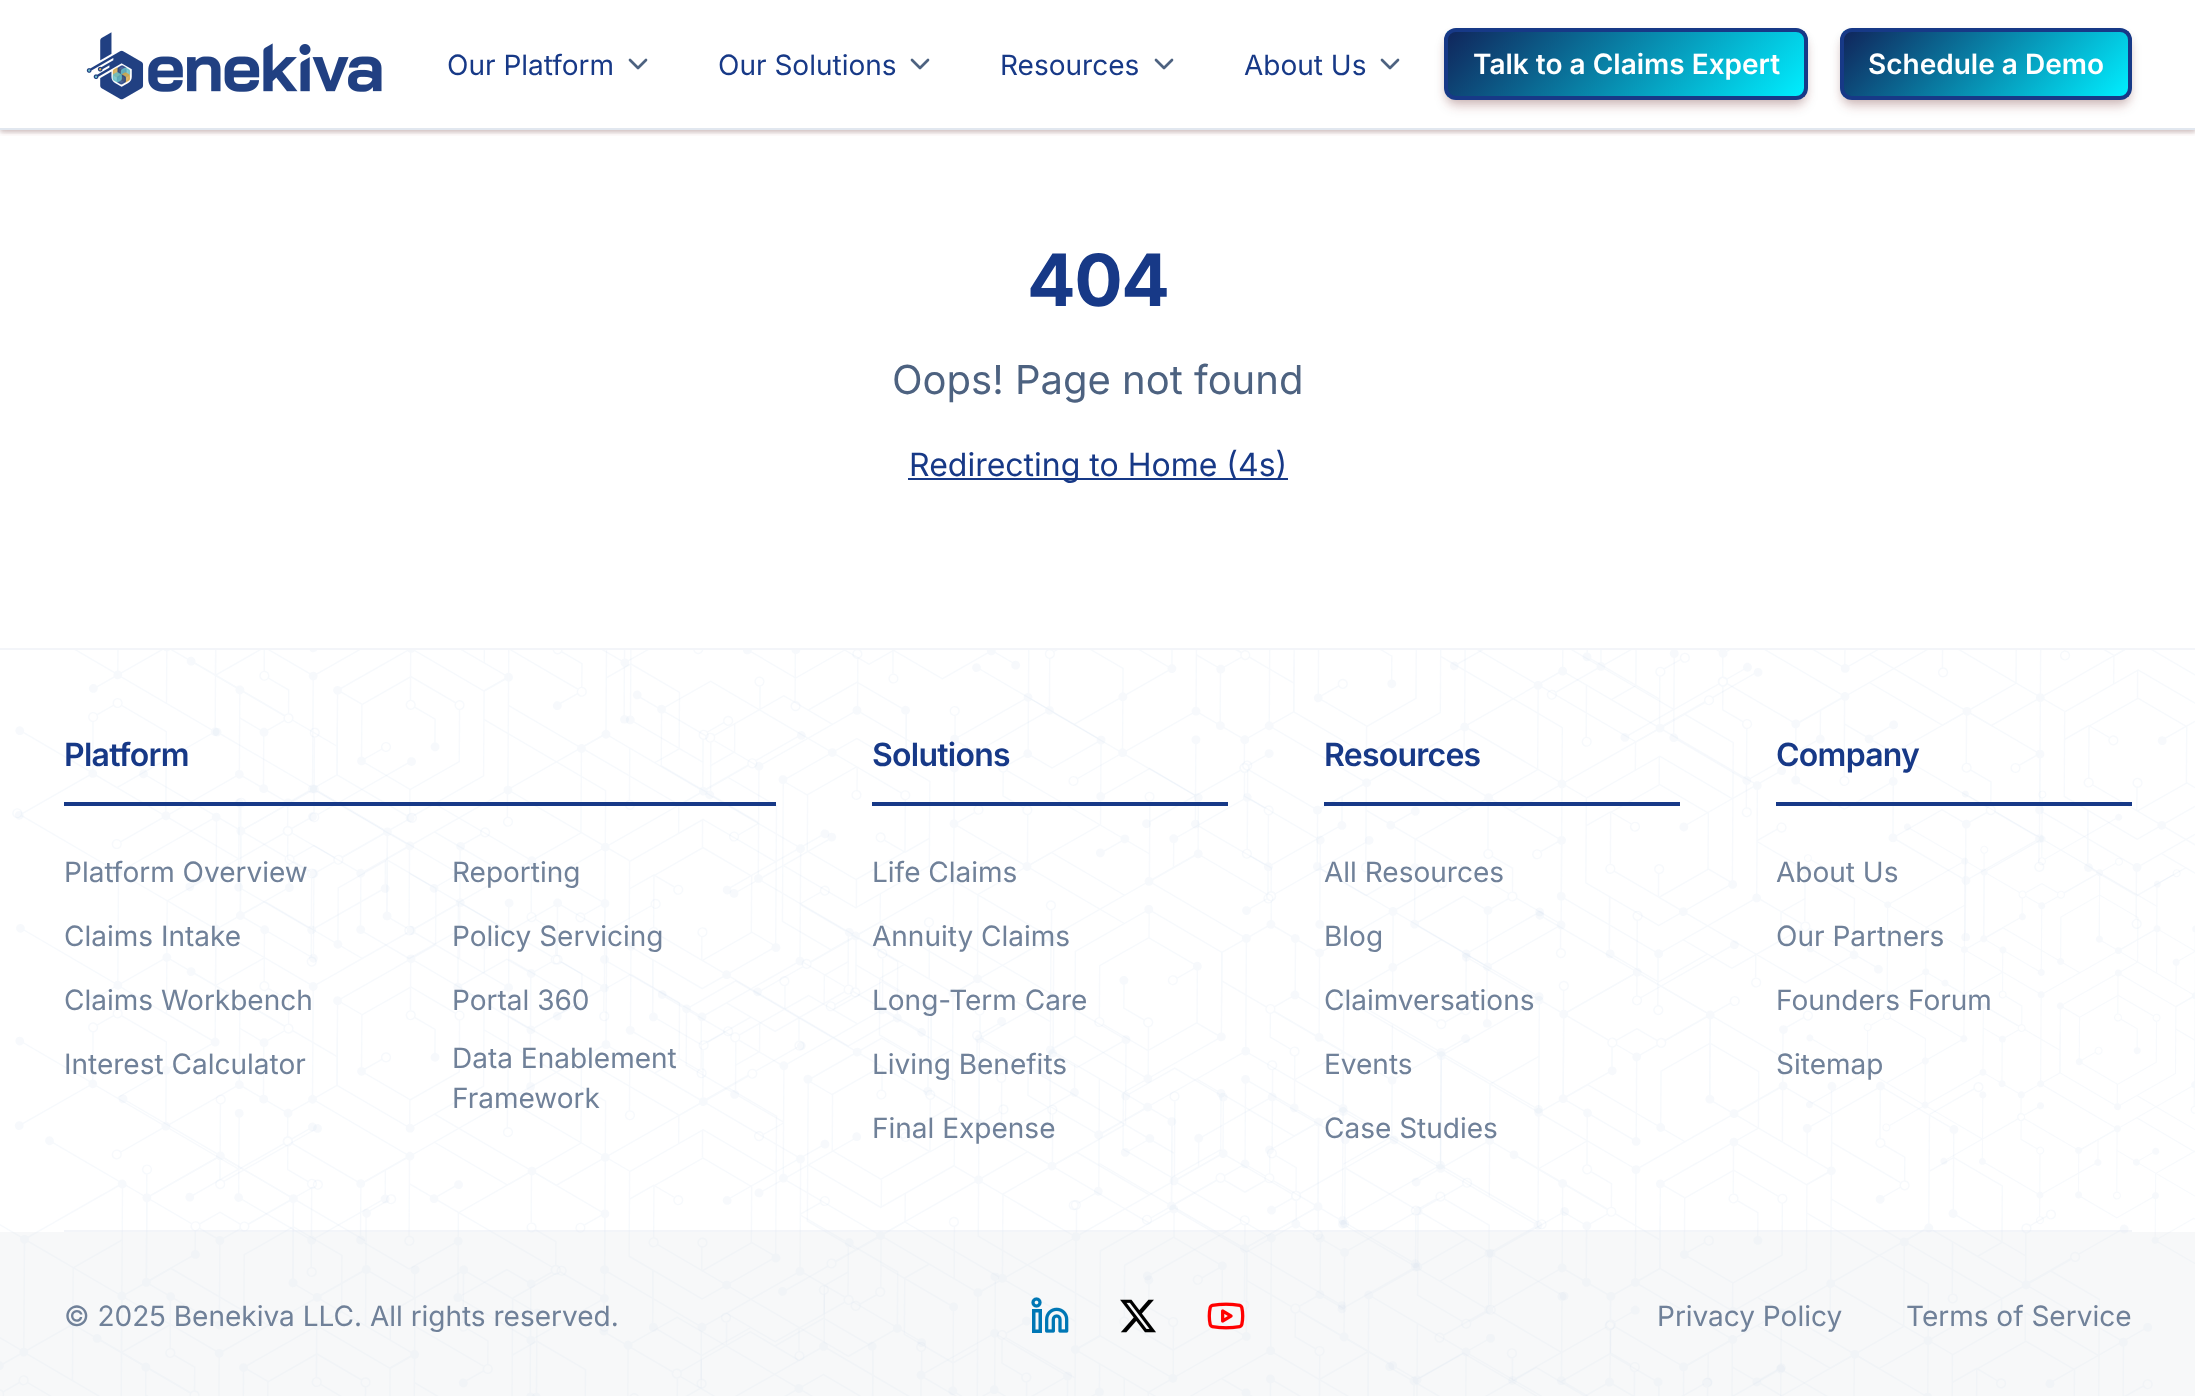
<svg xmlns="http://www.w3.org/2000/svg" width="2195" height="1396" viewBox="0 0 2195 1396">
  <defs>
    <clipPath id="clip1"><rect x="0" y="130" width="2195" height="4"/></clipPath>
    <filter id="blur1" x="-50%" y="-200%" width="200%" height="500%"><feGaussianBlur stdDeviation="2"/></filter>
    <clipPath id="clip2"><rect x="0" y="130" width="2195" height="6"/></clipPath>
    <filter id="blur2" x="-50%" y="-200%" width="200%" height="500%"><feGaussianBlur stdDeviation="3"/></filter>
    <filter id="blur3" x="-50%" y="-200%" width="200%" height="500%"><feGaussianBlur stdDeviation="4"/></filter>
    <filter id="blur4" x="-50%" y="-200%" width="200%" height="500%"><feGaussianBlur stdDeviation="6"/></filter>
    <clipPath id="clip3"><rect x="1444" y="28" width="364" height="72" rx="12"/></clipPath>
    <linearGradient id="g1" gradientUnits="userSpaceOnUse" x1="1165" y1="-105" x2="1375" y2="105"><stop offset="0" stop-color="#10265c"/><stop offset="1" stop-color="#00eeff"/></linearGradient>
    <linearGradient id="g2" gradientUnits="userSpaceOnUse" x1="1877" y1="-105" x2="2087" y2="105"><stop offset="0" stop-color="#10265c"/><stop offset="1" stop-color="#00eeff"/></linearGradient>
    <linearGradient id="g3" gradientUnits="userSpaceOnUse" x1="1521" y1="-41" x2="1731" y2="169"><stop offset="0" stop-color="#10265c"/><stop offset="1" stop-color="#00eeff"/></linearGradient>
    <linearGradient id="g4" gradientUnits="userSpaceOnUse" x1="1165" y1="23" x2="1375" y2="233"><stop offset="0" stop-color="#10265c"/><stop offset="1" stop-color="#00eeff"/></linearGradient>
    <linearGradient id="g5" gradientUnits="userSpaceOnUse" x1="1877" y1="23" x2="2087" y2="233"><stop offset="0" stop-color="#10265c"/><stop offset="1" stop-color="#00eeff"/></linearGradient>
    <clipPath id="clip4"><rect x="1840" y="28" width="292" height="72" rx="12"/></clipPath>
    <linearGradient id="g6" gradientUnits="userSpaceOnUse" x1="1615" y1="-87" x2="1789" y2="87"><stop offset="0" stop-color="#10265c"/><stop offset="1" stop-color="#00eeff"/></linearGradient>
    <linearGradient id="g7" gradientUnits="userSpaceOnUse" x1="2183" y1="-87" x2="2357" y2="87"><stop offset="0" stop-color="#10265c"/><stop offset="1" stop-color="#00eeff"/></linearGradient>
    <linearGradient id="g8" gradientUnits="userSpaceOnUse" x1="1899" y1="-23" x2="2073" y2="151"><stop offset="0" stop-color="#10265c"/><stop offset="1" stop-color="#00eeff"/></linearGradient>
    <linearGradient id="g9" gradientUnits="userSpaceOnUse" x1="1615" y1="41" x2="1789" y2="215"><stop offset="0" stop-color="#10265c"/><stop offset="1" stop-color="#00eeff"/></linearGradient>
    <linearGradient id="g10" gradientUnits="userSpaceOnUse" x1="2183" y1="41" x2="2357" y2="215"><stop offset="0" stop-color="#10265c"/><stop offset="1" stop-color="#00eeff"/></linearGradient>
  </defs>
  <rect width="100%" height="100%" fill="#ffffff"/>
  <g clip-path="url(#clip1)">
    <rect x="0" y="2" width="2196" height="130" fill="#000000" fill-opacity="0.12" filter="url(#blur1)"/>
  </g>
  <g clip-path="url(#clip2)">
    <rect x="0" y="2" width="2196" height="130" fill="#6b170b" fill-opacity="0.18" filter="url(#blur2)"/>
  </g>
  <rect x="0" y="128" width="2195" height="2" fill="#e1e7ef"/>
  <image x="86" y="32" width="296" height="68" href="img1.png"/>
  <text x="447" y="75" font-family="Inter" font-size="28" fill="#173987">Our Platform</text>
  <path d="M630 60L638 68L646 60" fill="none" stroke="#4d6280" stroke-width="2.7" stroke-linecap="round" stroke-linejoin="round"/>
  <text x="718" y="75" font-family="Inter" font-size="28" fill="#173987">Our Solutions</text>
  <path d="M912 60L920 68L928 60" fill="none" stroke="#4d6280" stroke-width="2.7" stroke-linecap="round" stroke-linejoin="round"/>
  <text x="1000" y="75" font-family="Inter" font-size="28" fill="#173987">Resources</text>
  <path d="M1156 60L1164 68L1172 60" fill="none" stroke="#4d6280" stroke-width="2.7" stroke-linecap="round" stroke-linejoin="round"/>
  <text x="1244" y="75" font-family="Inter" font-size="28" fill="#173987">About Us</text>
  <path d="M1382 60L1390 68L1398 60" fill="none" stroke="#4d6280" stroke-width="2.7" stroke-linecap="round" stroke-linejoin="round"/>
  <rect x="1446" y="34" width="360" height="68" rx="10" fill="#000000" fill-opacity="0.12" filter="url(#blur3)"/>
  <rect x="1446" y="38" width="360" height="68" rx="10" fill="#6b170b" fill-opacity="0.2" filter="url(#blur4)"/>
  <g clip-path="url(#clip3)">
    <rect x="1444" y="31" width="4" height="1" fill="url(#g1)"/>
    <rect x="1804" y="31" width="4" height="1" fill="url(#g2)"/>
  </g>
  <rect x="1448" y="32" width="356" height="64" fill="url(#g3)"/>
  <g clip-path="url(#clip3)">
    <rect x="1444" y="96" width="4" height="1" fill="url(#g4)"/>
    <rect x="1804" y="96" width="4" height="1" fill="url(#g5)"/>
  </g>
  <rect x="1446" y="30" width="360" height="68" rx="10" fill="none" stroke="#173987" stroke-width="4"/>
  <text x="1473" y="74" font-family="Inter" font-size="28" font-weight="600" fill="#ffffff">Talk to a Claims Expert</text>
  <rect x="1842" y="34" width="288" height="68" rx="10" fill="#000000" fill-opacity="0.12" filter="url(#blur3)"/>
  <rect x="1842" y="38" width="288" height="68" rx="10" fill="#6b170b" fill-opacity="0.2" filter="url(#blur4)"/>
  <g clip-path="url(#clip4)">
    <rect x="1840" y="31" width="4" height="1" fill="url(#g6)"/>
    <rect x="2128" y="31" width="4" height="1" fill="url(#g7)"/>
  </g>
  <rect x="1844" y="32" width="284" height="64" fill="url(#g8)"/>
  <g clip-path="url(#clip4)">
    <rect x="1840" y="96" width="4" height="1" fill="url(#g9)"/>
    <rect x="2128" y="96" width="4" height="1" fill="url(#g10)"/>
  </g>
  <rect x="1842" y="30" width="288" height="68" rx="10" fill="none" stroke="#173987" stroke-width="4"/>
  <text x="1868" y="74" font-family="Inter" font-size="28" font-weight="600" fill="#ffffff">Schedule a Demo</text>
  <text x="1027" y="306" font-family="Inter" font-size="72" font-weight="bold" letter-spacing="-1.5" fill="#173987">404</text>
  <text x="892" y="394" font-family="Inter" font-size="40" fill="#4d6280">Oops! Page not found</text>
  <rect x="908" y="478" width="380" height="2" fill="#173987"/>
  <text x="909" y="476" font-family="Inter" font-size="32" fill="#173987">Redirecting to Home (4s)</text>
  <rect x="0" y="648" width="2195" height="2" fill="#f3f5f9"/>
  <image x="0" y="650" width="2195" height="746" href="img2.png"/>
  <rect x="64" y="802" width="712" height="4" fill="#173987"/>
  <text x="64" y="766" font-family="Inter" font-size="32" font-weight="600" letter-spacing="-0.75" fill="#173987">Platform</text>
  <text x="64" y="882" font-family="Inter" font-size="28" fill="#708199">Platform Overview</text>
  <text x="64" y="946" font-family="Inter" font-size="28" fill="#708199">Claims Intake</text>
  <text x="64" y="1010" font-family="Inter" font-size="28" fill="#708199">Claims Workbench</text>
  <text x="64" y="1074" font-family="Inter" font-size="28" fill="#708199">Interest Calculator</text>
  <text x="452" y="882" font-family="Inter" font-size="28" fill="#708199">Reporting</text>
  <text x="452" y="946" font-family="Inter" font-size="28" fill="#708199">Policy Servicing</text>
  <text x="452" y="1010" font-family="Inter" font-size="28" fill="#708199">Portal 360</text>
  <text x="452" y="1068" font-family="Inter" font-size="28" fill="#708199">Data Enablement</text>
  <text x="452" y="1108" font-family="Inter" font-size="28" fill="#708199">Framework</text>
  <rect x="872" y="802" width="356" height="4" fill="#173987"/>
  <text x="872" y="766" font-family="Inter" font-size="32" font-weight="600" letter-spacing="-0.75" fill="#173987">Solutions</text>
  <text x="872" y="882" font-family="Inter" font-size="28" fill="#708199">Life Claims</text>
  <text x="872" y="946" font-family="Inter" font-size="28" fill="#708199">Annuity Claims</text>
  <text x="872" y="1010" font-family="Inter" font-size="28" fill="#708199">Long-Term Care</text>
  <text x="872" y="1074" font-family="Inter" font-size="28" fill="#708199">Living Benefits</text>
  <text x="872" y="1138" font-family="Inter" font-size="28" fill="#708199">Final Expense</text>
  <rect x="1324" y="802" width="356" height="4" fill="#173987"/>
  <text x="1324" y="766" font-family="Inter" font-size="32" font-weight="600" letter-spacing="-0.75" fill="#173987">Resources</text>
  <text x="1324" y="882" font-family="Inter" font-size="28" fill="#708199">All Resources</text>
  <text x="1324" y="946" font-family="Inter" font-size="28" fill="#708199">Blog</text>
  <text x="1324" y="1010" font-family="Inter" font-size="28" fill="#708199">Claimversations</text>
  <text x="1324" y="1074" font-family="Inter" font-size="28" fill="#708199">Events</text>
  <text x="1324" y="1138" font-family="Inter" font-size="28" fill="#708199">Case Studies</text>
  <rect x="1776" y="802" width="356" height="4" fill="#173987"/>
  <text x="1776" y="766" font-family="Inter" font-size="32" font-weight="600" letter-spacing="-0.75" fill="#173987">Company</text>
  <text x="1776" y="882" font-family="Inter" font-size="28" fill="#708199">About Us</text>
  <text x="1776" y="946" font-family="Inter" font-size="28" fill="#708199">Our Partners</text>
  <text x="1776" y="1010" font-family="Inter" font-size="28" fill="#708199">Founders Forum</text>
  <text x="1776" y="1074" font-family="Inter" font-size="28" fill="#708199">Sitemap</text>
  <rect x="64" y="1230" width="2068" height="2" fill="#e1e7ef" fill-opacity="0.4"/>
  <rect x="0" y="1232" width="2195" height="164" fill="#e5e7eb" fill-opacity="0.3"/>
  <text x="64" y="1326" font-family="Inter" font-size="28" fill="#708199">© 2025 Benekiva LLC. All rights reserved.</text>
  <image x="1031" y="1297" width="38" height="36" href="img3.png"/>
  <image x="1120" y="1299" width="36" height="34" href="img4.png"/>
  <image x="1207" y="1302" width="38" height="28" href="img5.png"/>
  <text x="1657" y="1326" font-family="Inter" font-size="28" fill="#708199">Privacy Policy</text>
  <text x="1906" y="1326" font-family="Inter" font-size="28" fill="#708199">Terms of Service</text>
</svg>
